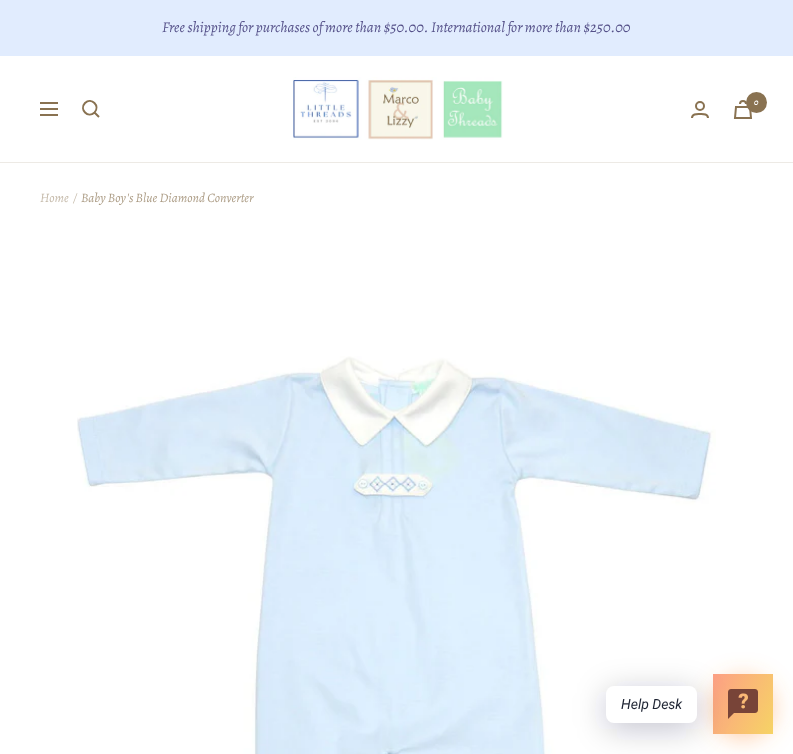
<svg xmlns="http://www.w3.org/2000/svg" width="793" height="754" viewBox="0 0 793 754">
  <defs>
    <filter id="blur1" x="-50%" y="-200%" width="200%" height="500%"><feGaussianBlur stdDeviation="12"/></filter>
    <linearGradient id="g1" gradientUnits="userSpaceOnUse" x1="707" y1="687" x2="779" y2="721"><stop offset="0" stop-color="#fda085"/><stop offset="1" stop-color="#f6d365"/></linearGradient>
    <filter id="blur2" x="-50%" y="-200%" width="200%" height="500%"><feGaussianBlur stdDeviation="16"/></filter>
  </defs>
  <rect width="100%" height="100%" fill="#ffffff"/>
  <rect x="0" y="0" width="793" height="56" fill="#e1ecfe"/>
  <text x="162" y="32" font-family="Alegreya" font-size="15" font-style="italic" fill="#555189">Free shipping for purchases of more than $50.00. International for more than $250.00</text>
  <rect x="0" y="162" width="793" height="1" fill="#edeae5"/>
  <path d="M40 103H58M40 115H58ZM40 109H58ZM94.5 112.5C100.5 106 91.5 97 85 103C79 109.5 88 118.5 94.5 112.5ZM94.5 112.5L99 117" fill="none" stroke="#897251" stroke-width="2"/>
  <image x="293" y="77" width="210" height="63" href="img1.png"/>
  <circle cx="700" cy="106" r="4" fill="none" stroke="#897251" stroke-width="2"/>
  <path d="M692 118C692 113.5 697 114 700 114C703 114 708 113.5 708 118M736 107H750L751 118H735ZM746 104C746 100 740 100 740 104" fill="none" stroke="#897251" stroke-width="2"/>
  <circle cx="756.5" cy="102.5" r="10.5" fill="#897251"/>
  <text x="754" y="105" font-family="Alegreya" font-size="9" font-weight="600" font-style="italic" fill="#ffffff">0</text>
  <text x="40" y="202" font-family="Alegreya" font-size="13" font-style="italic" fill="#c5baaa">Home</text>
  <text x="73" y="202" font-family="Alegreya" font-size="13" font-style="italic" fill="#c5baaa">/</text>
  <text x="81" y="202" font-family="Alegreya" font-size="13" font-style="italic" fill="#ac9c85">Baby Boy's Blue Diamond Converter</text>
  <image x="77" y="356" width="639" height="398" href="img2.png"/>
  <rect x="713" y="678" width="60" height="60" rx="30" fill="#ff9a4a" fill-opacity="0.5" filter="url(#blur1)"/>
  <rect x="713" y="674" width="60" height="60" fill="url(#g1)"/>
  <image x="728" y="689" width="30" height="30" href="img3.png"/>
  <rect x="606" y="692" width="91" height="37" rx="8" fill="#00122e" fill-opacity="0.24" filter="url(#blur2)"/>
  <rect x="606" y="686" width="91" height="37" rx="8" fill="#ffffff"/>
  <text x="621" y="709" font-family="Roboto" font-size="14" font-style="italic" fill="#1e2433">Help Desk</text>
</svg>
